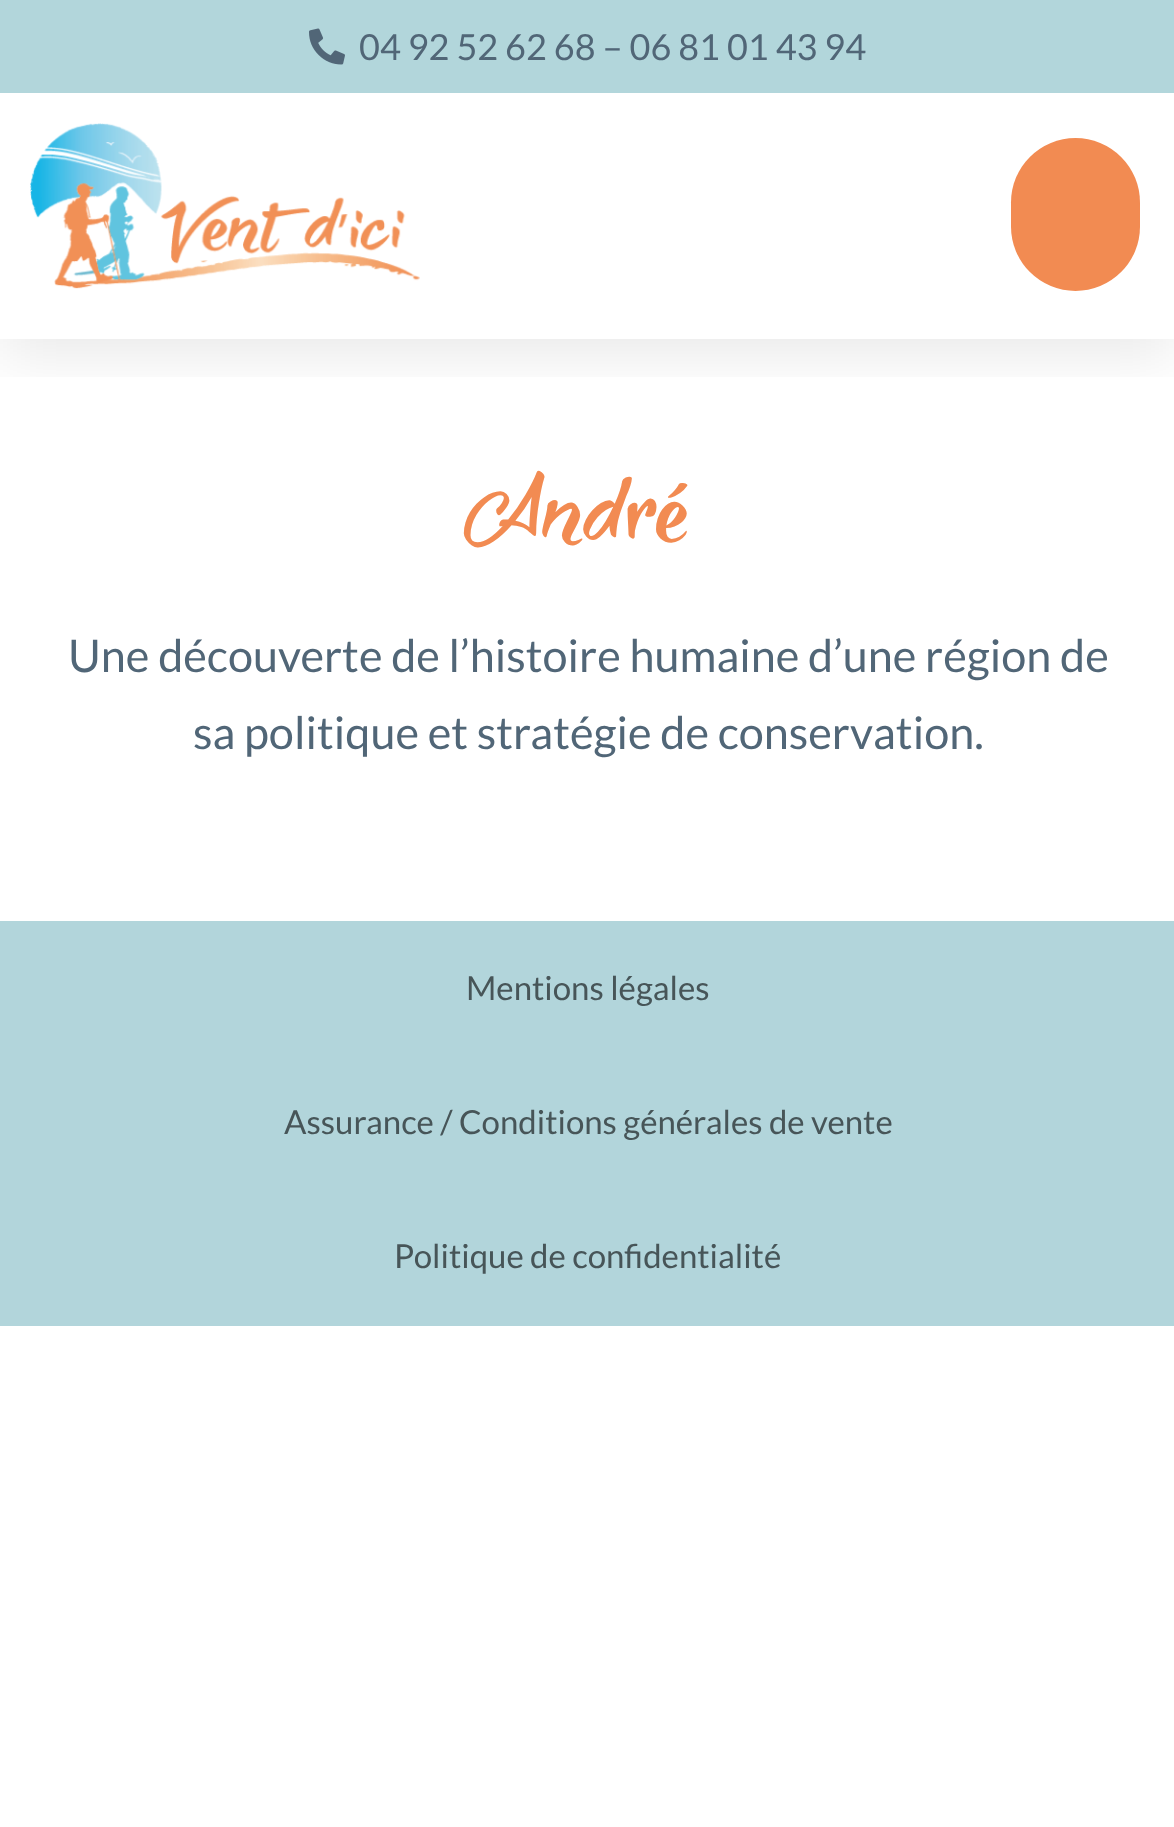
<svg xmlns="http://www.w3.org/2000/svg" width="1174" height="1827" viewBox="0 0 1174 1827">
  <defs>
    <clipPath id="clip1"><rect x="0" y="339" width="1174" height="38"/></clipPath>
    <filter id="blur1" x="-50%" y="-200%" width="200%" height="500%"><feGaussianBlur stdDeviation="30"/></filter>
  </defs>
  <rect width="100%" height="100%" fill="#ffffff"/>
  <g clip-path="url(#clip1)">
    <rect x="0" y="15" width="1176" height="339" fill="#000000" fill-opacity="0.09" filter="url(#blur1)"/>
  </g>
  <rect x="0" y="0" width="1174" height="93" fill="#b2d6db"/>
  <image x="309" y="28" width="36" height="37" href="img1.png"/>
  <text x="359" y="60" font-family="Lato" font-size="36" fill="#516677">04 92 52 62 68 – 06 81 01 43 94</text>
  <image x="30" y="123" width="390" height="166" href="img2.png"/>
  <rect x="1011" y="138" width="129" height="153" rx="64.5" fill="#f28b52"/>
  <text x="489" y="543" font-family="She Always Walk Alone" font-size="96" fill="#f28b52">André</text>
  <text x="68" y="672" font-family="Lato" font-size="45" fill="#516677">Une découverte de l’histoire humaine d’une région de</text>
  <text x="193" y="749" font-family="Lato" font-size="45" fill="#516677">sa politique et stratégie de conservation.</text>
  <rect x="0" y="921" width="1174" height="405" fill="#b2d5db"/>
  <text x="466" y="1000" font-family="Lato" font-size="33" fill="#475558">Mentions légales</text>
  <text x="284" y="1134" font-family="Lato" font-size="33" fill="#475558">Assurance / Conditions générales de vente</text>
  <text x="394" y="1268" font-family="Lato" font-size="33" fill="#475558">Politique de confidentialité</text>
</svg>
